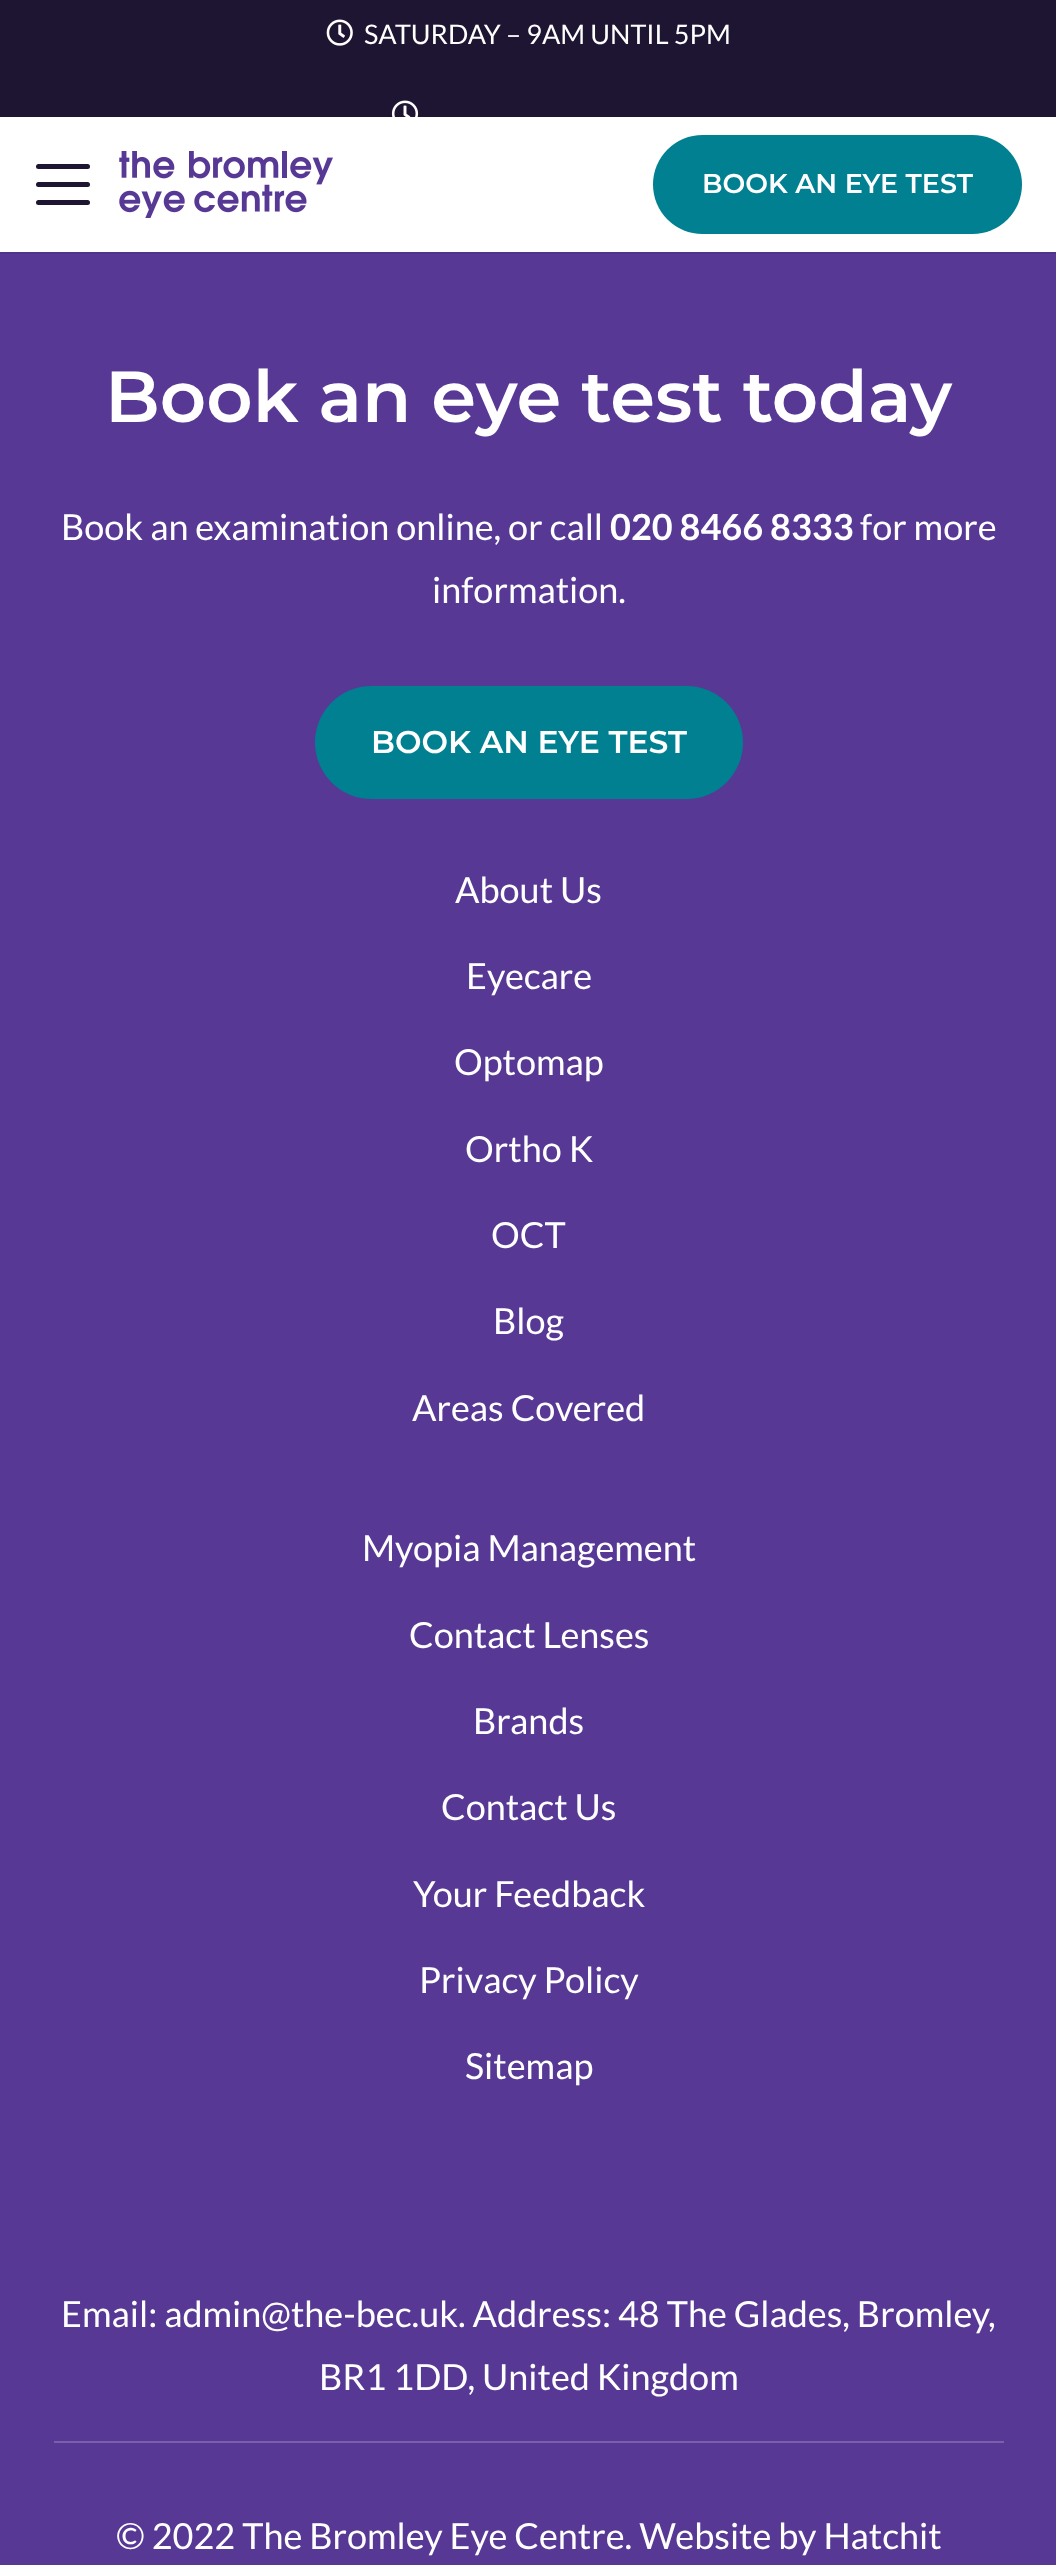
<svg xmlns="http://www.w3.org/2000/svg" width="1056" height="2565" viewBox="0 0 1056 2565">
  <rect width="100%" height="100%" fill="#1e1532"/>
  <image x="326" y="19" width="27" height="27" href="img1.png"/>
  <text x="364" y="44" font-family="Lato" font-size="27" fill="#ffffff">SATURDAY – 9AM UNTIL 5PM</text>
  <image x="391" y="100" width="28" height="17" href="img2.png"/>
  <rect x="0" y="254" width="1056" height="2311" fill="#573895"/>
  <text x="105" y="422" font-family="Montserrat" font-size="72" font-weight="100" fill="#ffffff">Book an eye test today</text>
  <text x="61" y="540" font-family="Lato" font-size="36" fill="#ffffff">Book an examination online, or call</text>
  <text x="610" y="540" font-family="Lato" font-size="36" font-weight="bold" fill="#ffffff">020 8466 8333</text>
  <text x="860" y="540" font-family="Lato" font-size="36" fill="#ffffff">for more</text>
  <text x="432" y="603" font-family="Lato" font-size="36" fill="#ffffff">information.</text>
  <rect x="315" y="686" width="428" height="113" rx="56.5" fill="#008090"/>
  <text x="371" y="753" font-family="Montserrat" font-size="31.5" font-weight="100" fill="#ffffff">BOOK AN EYE TEST</text>
  <text x="455" y="903" font-family="Lato" font-size="36" fill="#ffffff">About Us</text>
  <text x="466" y="989" font-family="Lato" font-size="36" fill="#ffffff">Eyecare</text>
  <text x="454" y="1075" font-family="Lato" font-size="36" fill="#ffffff">Optomap</text>
  <text x="465" y="1162" font-family="Lato" font-size="36" fill="#ffffff">Ortho K</text>
  <text x="491" y="1248" font-family="Lato" font-size="36" fill="#ffffff">OCT</text>
  <text x="493" y="1334" font-family="Lato" font-size="36" fill="#ffffff">Blog</text>
  <text x="412" y="1421" font-family="Lato" font-size="36" fill="#ffffff">Areas Covered</text>
  <text x="362" y="1561" font-family="Lato" font-size="36" fill="#ffffff">Myopia Management</text>
  <text x="409" y="1648" font-family="Lato" font-size="36" fill="#ffffff">Contact Lenses</text>
  <text x="473" y="1734" font-family="Lato" font-size="36" fill="#ffffff">Brands</text>
  <text x="441" y="1820" font-family="Lato" font-size="36" fill="#ffffff">Contact Us</text>
  <text x="413" y="1907" font-family="Lato" font-size="36" fill="#ffffff">Your Feedback</text>
  <text x="419" y="1993" font-family="Lato" font-size="36" fill="#ffffff">Privacy Policy</text>
  <text x="465" y="2079" font-family="Lato" font-size="36" fill="#ffffff">Sitemap</text>
  <text x="61" y="2327" font-family="Lato" font-size="36" fill="#ffffff">Email: admin@the-bec.uk. Address: 48 The Glades, Bromley,</text>
  <text x="319" y="2390" font-family="Lato" font-size="36" fill="#ffffff">BR1 1DD, United Kingdom</text>
  <rect x="54" y="2441" width="950" height="2" fill="#7960aa"/>
  <text x="116" y="2549" font-family="Lato" font-size="36" fill="#ffffff">© 2022 The Bromley Eye Centre. Website by Hatchit</text>
  <path d="M0 252V254H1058V119V252Z" fill="#503489"/>
  <rect x="0" y="117" width="1056" height="135" fill="#ffffff"/>
  <rect x="36" y="182" width="54" height="5" rx="2.5" fill="#1e1532"/>
  <rect x="36" y="164" width="54" height="5" rx="2.5" fill="#1e1532"/>
  <rect x="36" y="200" width="54" height="5" rx="2.5" fill="#1e1532"/>
  <image x="119" y="151" width="214" height="67" href="img3.png"/>
  <rect x="653" y="135" width="369" height="99" rx="49.5" fill="#008090"/>
  <text x="702" y="193" font-family="Montserrat" font-size="27" font-weight="100" fill="#ffffff">BOOK AN EYE TEST</text>
</svg>
